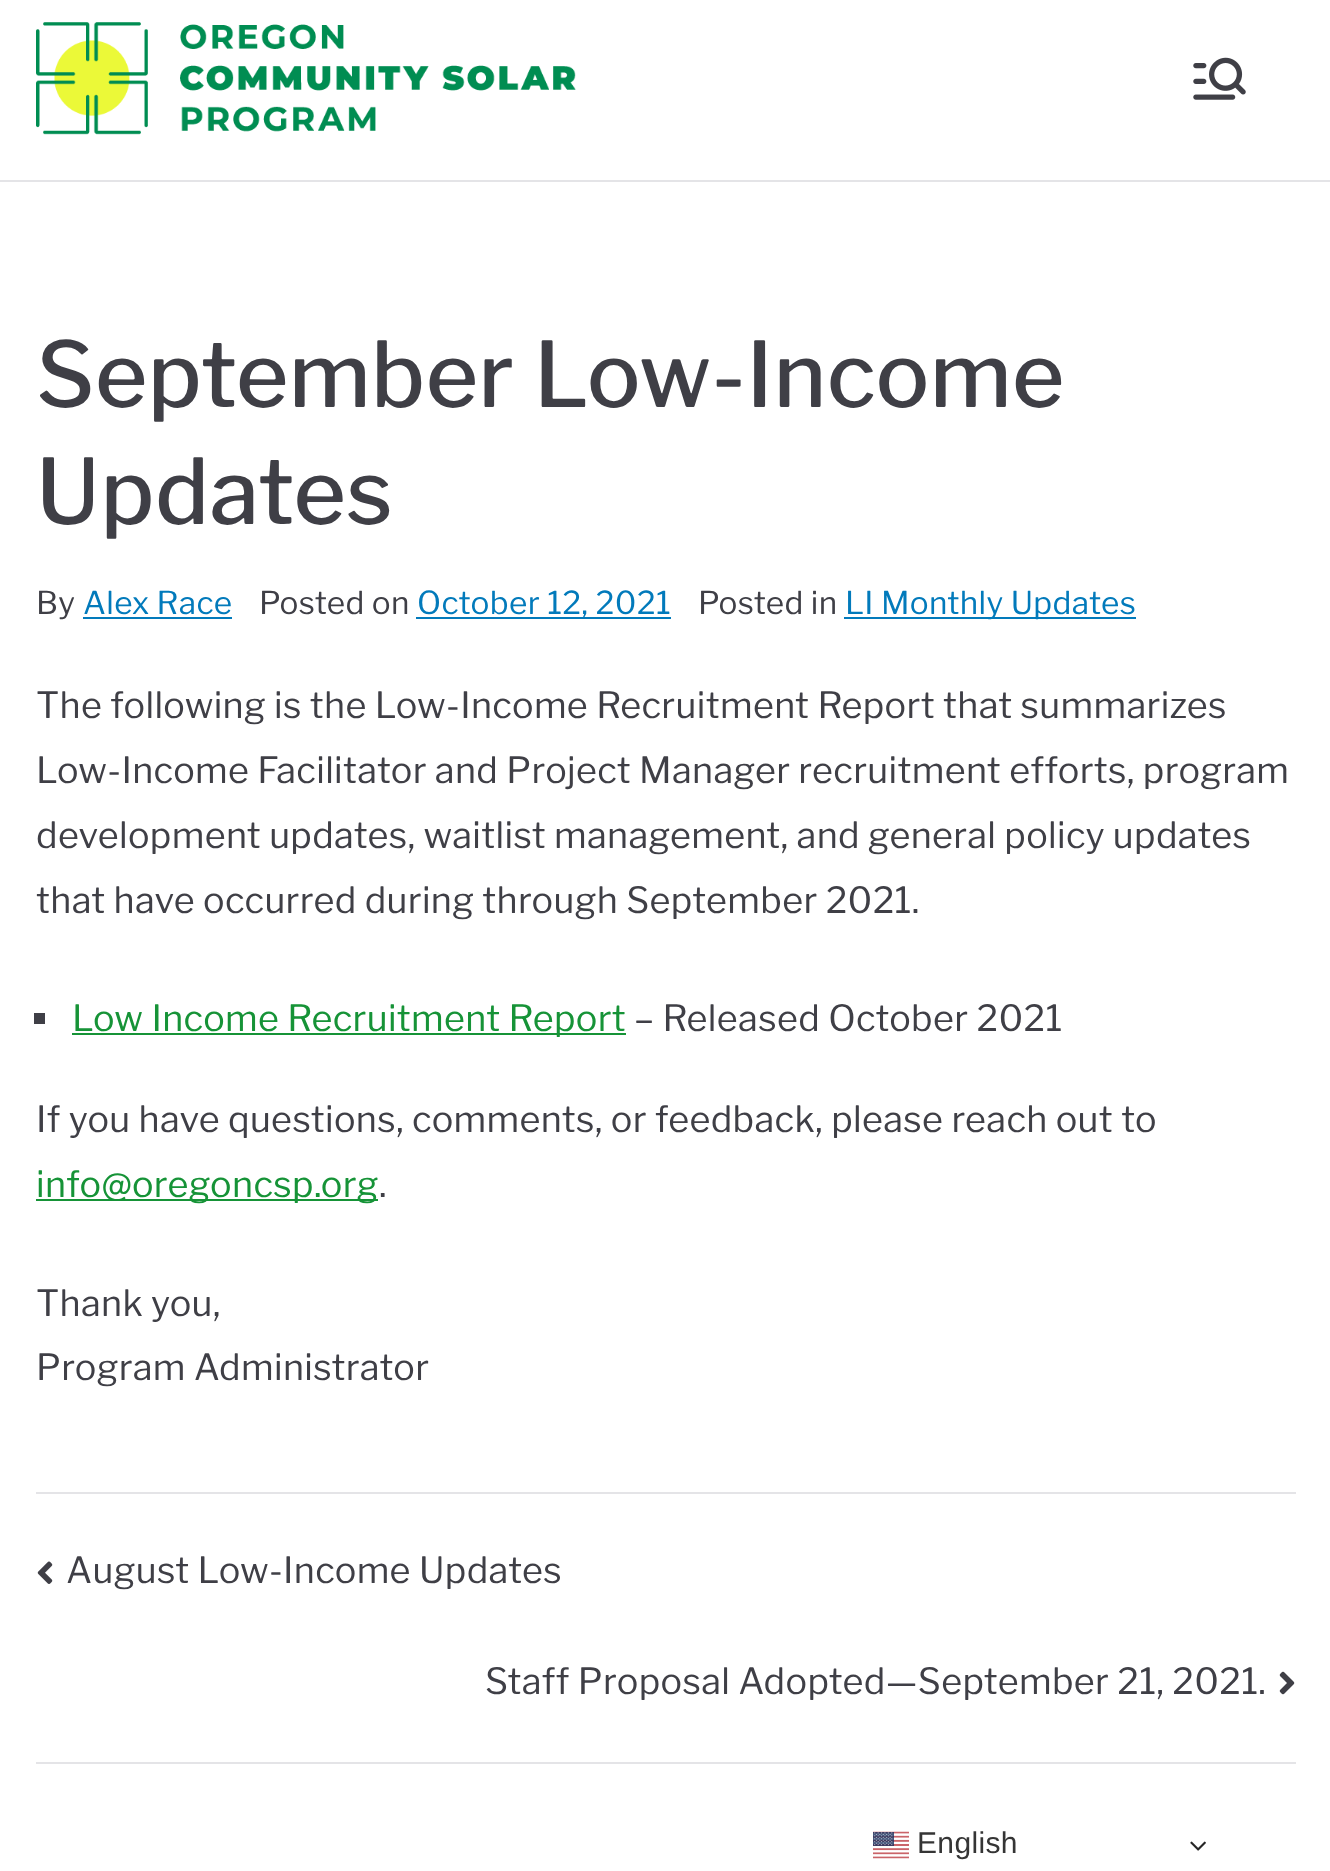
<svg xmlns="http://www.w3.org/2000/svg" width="1330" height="1871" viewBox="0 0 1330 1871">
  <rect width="100%" height="100%" fill="#ffffff"/>
  <rect x="0" y="180" width="1330" height="2" fill="#e4e4e7"/>
  <image x="36" y="22" width="540" height="113" href="img1.png"/>
  <image x="1193" y="57" width="53" height="43" href="img2.png"/>
  <text x="36" y="407" font-family="Libre Franklin" font-size="90" font-weight="500" letter-spacing="0.35" fill="#3f3f46">September Low-Income</text>
  <text x="36" y="524" font-family="Libre Franklin" font-size="90" font-weight="500" letter-spacing="0.35" fill="#3f3f46">Updates</text>
  <text x="36" y="614" font-family="Libre Franklin" font-size="31.5" letter-spacing="0.35" fill="#3f3f46">By</text>
  <text x="83" y="614" font-family="Libre Franklin" font-size="31.5" letter-spacing="0.35" fill="#027abb">Alex Race</text>
  <rect x="83" y="617" width="149" height="2" fill="#027abb"/>
  <text x="259" y="614" font-family="Libre Franklin" font-size="31.5" letter-spacing="0.35" fill="#3f3f46">Posted on</text>
  <rect x="416" y="617" width="255" height="2" fill="#027abb"/>
  <text x="417" y="614" font-family="Libre Franklin" font-size="31.5" letter-spacing="0.35" fill="#027abb">October 12, 2021</text>
  <text x="698" y="614" font-family="Libre Franklin" font-size="31.5" letter-spacing="0.35" fill="#3f3f46">Posted in</text>
  <rect x="844" y="617" width="292" height="2" fill="#027abb"/>
  <text x="845" y="614" font-family="Libre Franklin" font-size="31.5" letter-spacing="0.35" fill="#027abb">LI Monthly Updates</text>
  <text x="36" y="718" font-family="Libre Franklin" font-size="36" letter-spacing="0.35" fill="#3f3f46">The following is the Low-Income Recruitment Report that summarizes</text>
  <text x="36" y="783" font-family="Libre Franklin" font-size="36" letter-spacing="0.35" fill="#3f3f46">Low-Income Facilitator and Project Manager recruitment efforts, program</text>
  <text x="36" y="848" font-family="Libre Franklin" font-size="36" letter-spacing="0.35" fill="#3f3f46">development updates, waitlist management, and general policy updates</text>
  <text x="36" y="913" font-family="Libre Franklin" font-size="36" letter-spacing="0.35" fill="#3f3f46">that have occurred during through September 2021.</text>
  <rect x="34" y="1013" width="11" height="11" fill="#3f3f46"/>
  <rect x="72" y="1033" width="554" height="2" fill="#169337"/>
  <text x="72" y="1031" font-family="Libre Franklin" font-size="36" letter-spacing="0.35" fill="#169337">Low Income Recruitment Report</text>
  <text x="634" y="1031" font-family="Libre Franklin" font-size="36" letter-spacing="0.35" fill="#3f3f46">– Released October 2021</text>
  <text x="36" y="1132" font-family="Libre Franklin" font-size="36" letter-spacing="0.35" fill="#3f3f46">If you have questions, comments, or feedback, please reach out to</text>
  <rect x="36" y="1199" width="342" height="2" fill="#169337"/>
  <text x="36" y="1197" font-family="Libre Franklin" font-size="36" letter-spacing="0.35" fill="#169337">info@oregoncsp.org</text>
  <text x="379" y="1197" font-family="Libre Franklin" font-size="36" letter-spacing="0.35" fill="#3f3f46">.</text>
  <text x="36" y="1316" font-family="Libre Franklin" font-size="36" letter-spacing="0.35" fill="#3f3f46">Thank you,</text>
  <text x="36" y="1380" font-family="Libre Franklin" font-size="36" letter-spacing="0.35" fill="#3f3f46">Program Administrator</text>
  <rect x="36" y="1492" width="1260" height="2" fill="#e4e4e7"/>
  <rect x="36" y="1762" width="1260" height="2" fill="#e4e4e7"/>
  <image x="37" y="1561" width="16" height="23" href="img3.png"/>
  <text x="66" y="1583" font-family="Libre Franklin" font-size="36" letter-spacing="0.35" fill="#3f3f46">August Low-Income Updates</text>
  <text x="485" y="1694" font-family="Libre Franklin" font-size="36" letter-spacing="0.35" fill="#3f3f46">Staff Proposal Adopted—September 21, 2021.</text>
  <image x="1279" y="1671" width="16" height="24" href="img4.png"/>
  <image x="873" y="1831" width="36" height="28" href="img5.png"/>
  <text x="917" y="1853" font-family="Liberation Sans" font-size="30" letter-spacing="0.35" fill="#353535">English</text>
  <image x="1190" y="1841" width="16" height="10" href="img6.png"/>
</svg>
